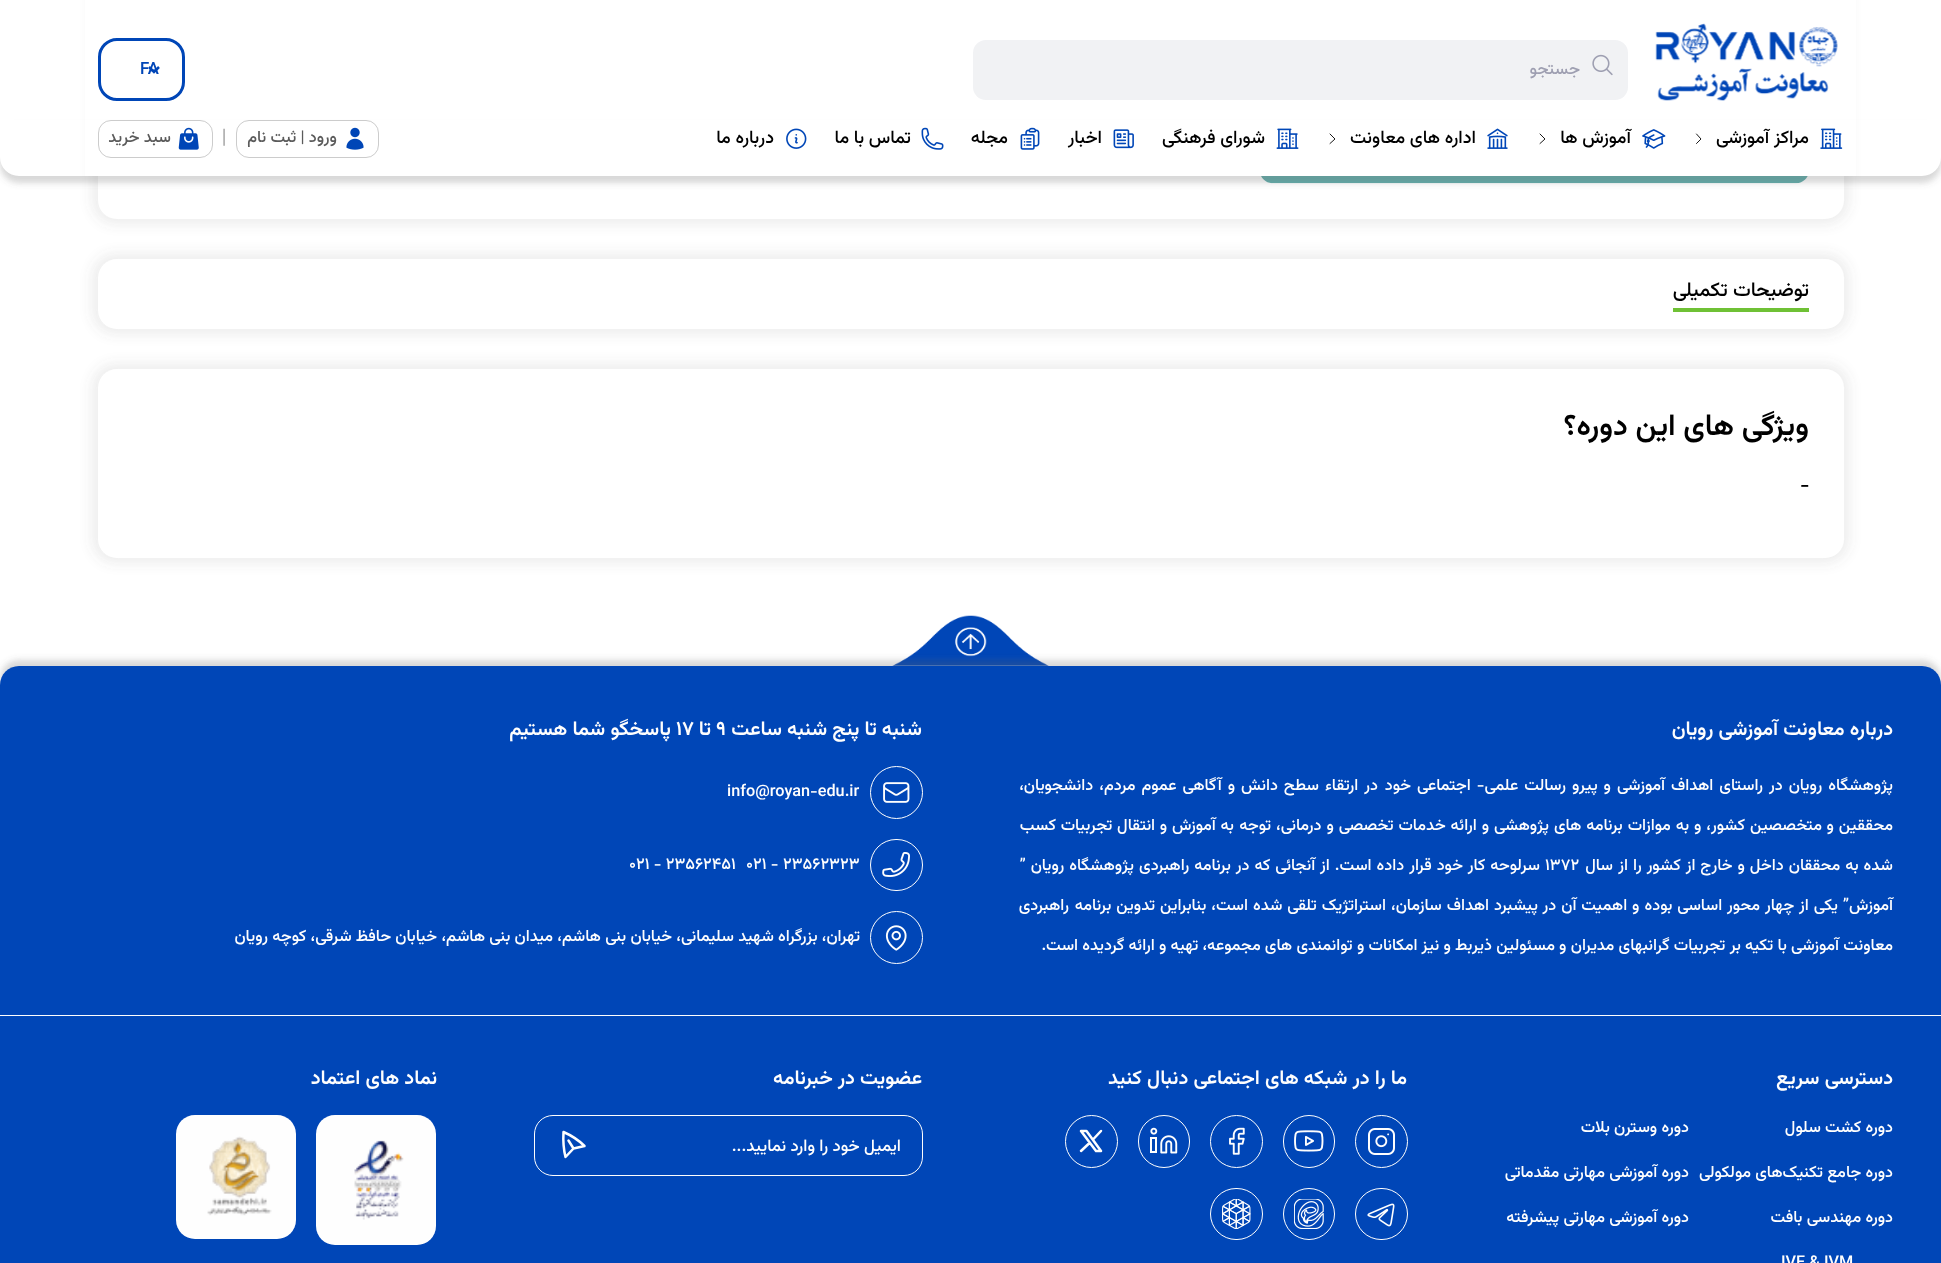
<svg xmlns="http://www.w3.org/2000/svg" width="1941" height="1263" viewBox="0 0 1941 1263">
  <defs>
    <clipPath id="clip1"><path d="M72 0H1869V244H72ZM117-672H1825C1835.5-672 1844-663.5 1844-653V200C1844 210.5 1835.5 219 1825 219H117C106.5 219 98 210.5 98 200V-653C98-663.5 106.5-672 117-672Z" clip-rule="evenodd"/></clipPath>
    <filter id="blur1" x="-50%" y="-200%" width="200%" height="500%"><feGaussianBlur stdDeviation="6"/></filter>
    <clipPath id="clip2"><path d="M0 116H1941V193H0ZM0 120H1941V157C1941 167.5 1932.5 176 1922 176H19C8.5 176 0 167.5 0 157Z" clip-rule="evenodd"/></clipPath>
    <filter id="blur2" x="-50%" y="-200%" width="200%" height="500%"><feGaussianBlur stdDeviation="3"/></filter>
  </defs>
  <rect width="100%" height="100%" fill="#ffffff"/>
  <g clip-path="url(#clip1)">
    <rect x="91" y="-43" width="1759" height="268" rx="25" fill="#646464" fill-opacity="0.1" filter="url(#blur1)"/>
  </g>
  <rect x="85" y="0" width="1771" height="176" fill="#ffffff"/>
  <image x="1655" y="23" width="183" height="78" href="img1.png"/>
  <rect x="973" y="40" width="655" height="60" rx="13" fill="#f1f2f4"/>
  <image x="1592" y="54" width="21" height="22" href="img2.png"/>
  <text x="1580" y="74" font-family="Vazirmatn" font-size="16.75" font-weight="500" direction="rtl" fill="#9e9fb1">جستجو</text>
  <rect x="99.5" y="39.5" width="84" height="60" rx="17.5" fill="none" stroke="#0046b7" stroke-width="3"/>
  <path d="M149 67L154 72L159 67" fill="none" stroke="#0046b7" stroke-width="2.5"/>
  <text x="140" y="74" font-family="Vazirmatn" font-size="16.75" font-weight="500" fill="#0046b7">FA</text>
  <image x="1261" y="176" width="547" height="8" href="img13.png"/>
  <g clip-path="url(#clip2)">
    <rect x="0" y="126" width="1941" height="57" rx="19" fill="#646464" fill-opacity="0.25" filter="url(#blur2)"/>
  </g>
  <image x="1820" y="128" width="23" height="21" href="img3.png"/>
  <text x="1809" y="143" font-family="Vazirmatn" font-size="18" font-weight="500" direction="rtl" fill="#000000">مراکز آموزشی</text>
  <path d="M1696.5 134L1701 139L1696.5 143.5" fill="none" stroke="#000000" stroke-width="0.9" stroke-linecap="round" stroke-linejoin="round"/>
  <image x="1642" y="129" width="24" height="20" href="img4.png"/>
  <text x="1631" y="143" font-family="Vazirmatn" font-size="18" font-weight="500" direction="rtl" fill="#000000">آموزش ها</text>
  <path d="M1540 134L1545 139L1540 143.5" fill="none" stroke="#000000" stroke-width="0.9" stroke-linecap="round" stroke-linejoin="round"/>
  <image x="1487" y="128" width="21" height="21" href="img5.png"/>
  <text x="1476" y="143" font-family="Vazirmatn" font-size="18" font-weight="500" direction="rtl" fill="#000000">اداره های معاونت</text>
  <path d="M1330 134L1335 139L1330 143.5" fill="none" stroke="#000000" stroke-width="0.9" stroke-linecap="round" stroke-linejoin="round"/>
  <image x="1276" y="128" width="23" height="21" href="img6.png"/>
  <text x="1265" y="143" font-family="Vazirmatn" font-size="18" font-weight="500" direction="rtl" fill="#000000">شورای فرهنگی</text>
  <image x="1113" y="129" width="21" height="20" href="img7.png"/>
  <text x="1102" y="143" font-family="Vazirmatn" font-size="18" font-weight="500" direction="rtl" fill="#000000">اخبار</text>
  <image x="1020" y="127" width="20" height="23" href="img8.png"/>
  <text x="1008" y="143" font-family="Vazirmatn" font-size="18" font-weight="500" direction="rtl" fill="#000000">مجله</text>
  <image x="921" y="127" width="23" height="23" href="img9.png"/>
  <text x="911" y="143" font-family="Vazirmatn" font-size="18" font-weight="500" direction="rtl" fill="#000000">تماس با ما</text>
  <image x="786" y="128" width="21" height="21" href="img10.png"/>
  <text x="774" y="143" font-family="Vazirmatn" font-size="18" font-weight="500" direction="rtl" fill="#000000">درباره ما</text>
  <rect x="236.5" y="120.5" width="142" height="37" rx="12.5" fill="none" stroke="#cccccc"/>
  <image x="346" y="127" width="18" height="23" href="img11.png"/>
  <text x="337" y="142" font-family="Vazirmatn" font-size="16.25" font-weight="500" direction="rtl" fill="#5b5b5b">ورود | ثبت نام</text>
  <text x="222" y="143" font-family="Vazirmatn" font-size="20" font-weight="100" fill="#000000">|</text>
  <rect x="98.5" y="120.5" width="114" height="37" rx="12.5" fill="none" stroke="#cccccc"/>
  <image x="178" y="127" width="21" height="23" href="img12.png"/>
  <text x="171" y="142" font-family="Vazirmatn" font-size="16.25" font-weight="500" direction="rtl" fill="#5b5b5b">سبد خرید</text>
  <rect x="91" y="253" width="1759" height="82" rx="25" fill="#646464" fill-opacity="0.1" filter="url(#blur1)"/>
  <rect x="98" y="259" width="1746" height="70" rx="19" fill="#ffffff"/>
  <rect x="1673" y="308" width="136" height="4" fill="#6fc135"/>
  <text x="1809" y="296" font-family="Vazirmatn" font-size="20" font-weight="500" direction="rtl" fill="#000000">توضیحات تکمیلی</text>
  <rect x="91" y="363" width="1759" height="201" rx="25" fill="#646464" fill-opacity="0.1" filter="url(#blur1)"/>
  <rect x="98" y="369" width="1746" height="189" rx="19" fill="#ffffff"/>
  <text x="1809" y="435" font-family="Vazirmatn" font-size="30" font-weight="600" direction="rtl" fill="#000000">ویژگی های این دوره؟</text>
  <text x="1800" y="491" font-family="Vazirmatn" font-size="20" font-weight="500" fill="#000000">-</text>
  <image x="892" y="615" width="157" height="51" href="img14.png"/>
  <rect x="0" y="660" width="1941" height="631" rx="19" fill="#646464" fill-opacity="0.25" filter="url(#blur2)"/>
  <path d="M19 666H1922C1932.5 666 1941 674.5 1941 685V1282H0V685C0 674.5 8.5 666 19 666Z" fill="#0046b7"/>
  <rect x="0" y="1015" width="1941" height="1" fill="#fefefe"/>
  <text x="1893" y="735" font-family="Vazirmatn" font-size="20" font-weight="600" direction="rtl" fill="#fefefe">درباره معاونت آموزشی رویان</text>
  <text x="1893" y="790" word-spacing="1.75" font-family="Vazirmatn" font-size="16.25" font-weight="500" direction="rtl" fill="#fefefe">پژوهشگاه رویان در راستای اهداف آموزشی و پیرو رسالت علمی- اجتماعی خود</text>
  <text x="1378" y="790" word-spacing="1.75" font-family="Vazirmatn" font-size="16.25" font-weight="500" direction="rtl" fill="#fefefe">در ارتقاء سطح دانش و آگاهی عموم مردم، دانشجویان،</text>
  <text x="1893" y="830" word-spacing="0.5" font-family="Vazirmatn" font-size="16.25" font-weight="500" direction="rtl" fill="#fefefe">محققین و متخصصین</text>
  <text x="1745" y="830" word-spacing="0.7" font-family="Vazirmatn" font-size="16.25" font-weight="500" direction="rtl" fill="#fefefe">کشور، و به موازات برنامه های پژوهشی و ارائه خدمات تخصصی و درمانی، توجه</text>
  <text x="1234" y="830" word-spacing="0.5" font-family="Vazirmatn" font-size="16.25" font-weight="500" direction="rtl" fill="#fefefe">به آموزش و انتقال تجربیات کسب</text>
  <text x="1893" y="870" word-spacing="0.75" font-family="Vazirmatn" font-size="16.25" font-weight="500" direction="rtl" fill="#fefefe">شده به محققان داخل و خارج از کشور را از</text>
  <text x="1613" y="870" font-family="Vazirmatn" font-size="16.25" font-weight="500" direction="rtl" fill="#fefefe">سال</text>
  <text x="1545" y="870" font-family="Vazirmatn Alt" font-size="16.25" font-weight="500" fill="#fefefe">1372</text>
  <text x="1540" y="870" word-spacing="0.75" font-family="Vazirmatn" font-size="16.25" font-weight="500" direction="rtl" fill="#fefefe">سرلوحه کار خود قرار داده است. از آنجائی که در برنامه راهبردی</text>
  <text x="1134" y="870" word-spacing="0.75" font-family="Vazirmatn" font-size="16.25" font-weight="500" direction="rtl" fill="#fefefe">پژوهشگاه رویان ”</text>
  <text x="1893" y="910" word-spacing="0.75" font-family="Vazirmatn" font-size="16.25" font-weight="500" direction="rtl" fill="#fefefe">آموزش” یکی از چهار محور اساسی بوده و اهمیت آن در</text>
  <text x="1538" y="910" word-spacing="0.75" font-family="Vazirmatn" font-size="16.25" font-weight="500" direction="rtl" fill="#fefefe">پیشبرد اهداف سازمان، استراتژیک تلقی شده است، بنابراین تدوین برنامه</text>
  <text x="1069" y="910" font-family="Vazirmatn" font-size="16.25" font-weight="500" direction="rtl" fill="#fefefe">راهبردی</text>
  <text x="1893" y="950" font-family="Vazirmatn" font-size="16.25" font-weight="500" direction="rtl" fill="#fefefe">معاونت آموزشی با تکیه بر تجربیات گرانبهای مدیران و مسئولین</text>
  <text x="1492" y="950" font-family="Vazirmatn" font-size="16.25" font-weight="500" direction="rtl" fill="#fefefe">ذیربط و نیز امکانات و توانمندی های مجموعه، تهیه و ارائه گردیده است.</text>
  <text x="922" y="735" font-family="Vazirmatn" font-size="20" font-weight="600" direction="rtl" fill="#fefefe">شنبه تا پنج شنبه ساعت</text>
  <text x="716" y="735" font-family="Vazirmatn" font-size="20" font-weight="600" fill="#fefefe">۹</text>
  <text x="711" y="735" font-family="Vazirmatn" font-size="20" font-weight="600" direction="rtl" fill="#fefefe">تا</text>
  <text x="676" y="735" font-family="Vazirmatn" font-size="20" font-weight="600" fill="#fefefe">۱۷</text>
  <text x="671" y="735" font-family="Vazirmatn" font-size="20" font-weight="600" direction="rtl" fill="#fefefe">پاسخگو شما هستیم</text>
  <circle cx="896.5" cy="792.5" r="26" fill="none" stroke="#fefefe"/>
  <image x="883" y="782" width="27" height="21" href="img15.png"/>
  <text x="727" y="796" font-family="Vazirmatn" font-size="16.25" font-weight="500" fill="#fefefe">info@royan-edu.ir</text>
  <rect x="870.5" y="839.5" width="52" height="51" rx="25.5" fill="none" stroke="#fefefe"/>
  <image x="882" y="852" width="28" height="25" href="img16.png"/>
  <text x="783" y="869" font-family="Vazirmatn Alt" font-size="16.25" font-weight="500" fill="#fefefe">۲۳۵۶۲323</text>
  <text x="746" y="869" font-family="Vazirmatn" font-size="16.25" font-weight="500" fill="#fefefe">۰۲۱ -</text>
  <text x="629" y="869" font-family="Vazirmatn" font-size="16.25" font-weight="500" fill="#fefefe">۰۲۱ - ۲۳۵۶۲۴۵۱</text>
  <circle cx="896.5" cy="937.5" r="26" fill="none" stroke="#fefefe"/>
  <image x="885" y="925" width="22" height="26" href="img17.png"/>
  <text x="860" y="941" font-family="Vazirmatn" font-size="16.25" font-weight="500" direction="rtl" fill="#fefefe">تهران، بزرگراه شهید سلیمانی، خیابان بنی هاشم، میدان بنی هاشم،</text>
  <text x="437" y="941" font-family="Vazirmatn" font-size="16.25" font-weight="500" direction="rtl" fill="#fefefe">خیابان حافظ شرقی، کوچه رویان</text>
  <text x="1893" y="1084" font-family="Vazirmatn" font-size="20" font-weight="600" direction="rtl" fill="#fefefe">دسترسی سریع</text>
  <text x="1893" y="1132" font-family="Vazirmatn" font-size="16.25" font-weight="500" direction="rtl" fill="#fefefe">دوره کشت سلول</text>
  <text x="1893" y="1177" font-family="Vazirmatn" font-size="16.25" font-weight="500" direction="rtl" fill="#fefefe">دوره جامع تکنیک‌های مولکولی</text>
  <text x="1893" y="1222" font-family="Vazirmatn" font-size="16.25" font-weight="500" direction="rtl" fill="#fefefe">دوره مهندسی بافت</text>
  <text x="1781" y="1267" font-family="Vazirmatn" font-size="16.25" font-weight="500" fill="#fefefe">IVF &amp; IVM</text>
  <text x="1689" y="1132" font-family="Vazirmatn" font-size="16.25" font-weight="500" direction="rtl" fill="#fefefe">دوره وسترن بلات</text>
  <text x="1689" y="1177" font-family="Vazirmatn" font-size="16.25" font-weight="500" direction="rtl" fill="#fefefe">دوره آموزشی مهارتی مقدماتی</text>
  <text x="1689" y="1222" font-family="Vazirmatn" font-size="16.25" font-weight="500" direction="rtl" fill="#fefefe">دوره آموزشی مهارتی پیشرفته</text>
  <text x="1407" y="1084" font-family="Vazirmatn" font-size="20" font-weight="600" direction="rtl" fill="#fefefe">ما را در شبکه های اجتماعی دنبال کنید</text>
  <circle cx="1381.5" cy="1141.5" r="26" fill="none" stroke="#fefefe"/>
  <image x="1368" y="1128" width="27" height="27" href="img18.png"/>
  <rect x="1283.5" y="1115.5" width="51" height="52" rx="25.5" fill="none" stroke="#fefefe"/>
  <image x="1294" y="1130" width="30" height="22" href="img19.png"/>
  <circle cx="1236.5" cy="1141.5" r="26" fill="none" stroke="#fefefe"/>
  <image x="1229" y="1127" width="16" height="28" href="img20.png"/>
  <rect x="1138.5" y="1115.5" width="51" height="52" rx="25.5" fill="none" stroke="#fefefe"/>
  <image x="1150" y="1127" width="28" height="27" href="img21.png"/>
  <circle cx="1091.5" cy="1141.5" r="26" fill="none" stroke="#fefefe"/>
  <path d="M1081 1131L1096 1151H1101L1086.5 1131ZM1081 1151L1089.5 1143M1093 1139.5L1101 1131" fill="none" stroke="#fefefe" stroke-width="2.5" stroke-linecap="round" stroke-linejoin="round"/>
  <rect x="1355.5" y="1188.5" width="52" height="51" rx="25.5" fill="none" stroke="#fefefe"/>
  <image x="1367" y="1203" width="28" height="24" href="img22.png"/>
  <circle cx="1309" cy="1214" r="25.5" fill="none" stroke="#fefefe"/>
  <image x="1294" y="1199" width="30" height="30" href="img23.png"/>
  <rect x="1210.5" y="1188.5" width="52" height="51" rx="25.5" fill="none" stroke="#fefefe"/>
  <image x="1222" y="1199" width="29" height="30" href="img24.png"/>
  <text x="922" y="1084" font-family="Vazirmatn" font-size="20" font-weight="600" direction="rtl" fill="#fefefe">عضویت در خبرنامه</text>
  <rect x="534.5" y="1115.5" width="388" height="60" rx="18.5" fill="none" stroke="#fefefe"/>
  <text x="901" y="1151" font-family="Vazirmatn" font-size="16.75" font-weight="500" direction="rtl" fill="#fefefe">ایمیل خود را وارد نمایید...</text>
  <path d="M573.5 1148.5L565.5 1157C563.5 1149 563 1140.5 563.5 1132C571.5 1135.5 578.5 1140 584.5 1146ZM573.5 1148.5L568.5 1140.5" fill="none" stroke="#fefefe" stroke-width="2.5" stroke-linecap="round" stroke-linejoin="round"/>
  <text x="437" y="1084" font-family="Vazirmatn" font-size="20" font-weight="600" direction="rtl" fill="#fefefe">نماد های اعتماد</text>
  <rect x="316" y="1115" width="120" height="130" rx="19" fill="#fefefe"/>
  <image x="354" y="1140" width="50" height="80" href="img25.png"/>
  <rect x="176" y="1115" width="120" height="124" rx="19" fill="#fefefe"/>
  <image x="207" y="1136" width="65" height="80" href="img26.png"/>
</svg>
